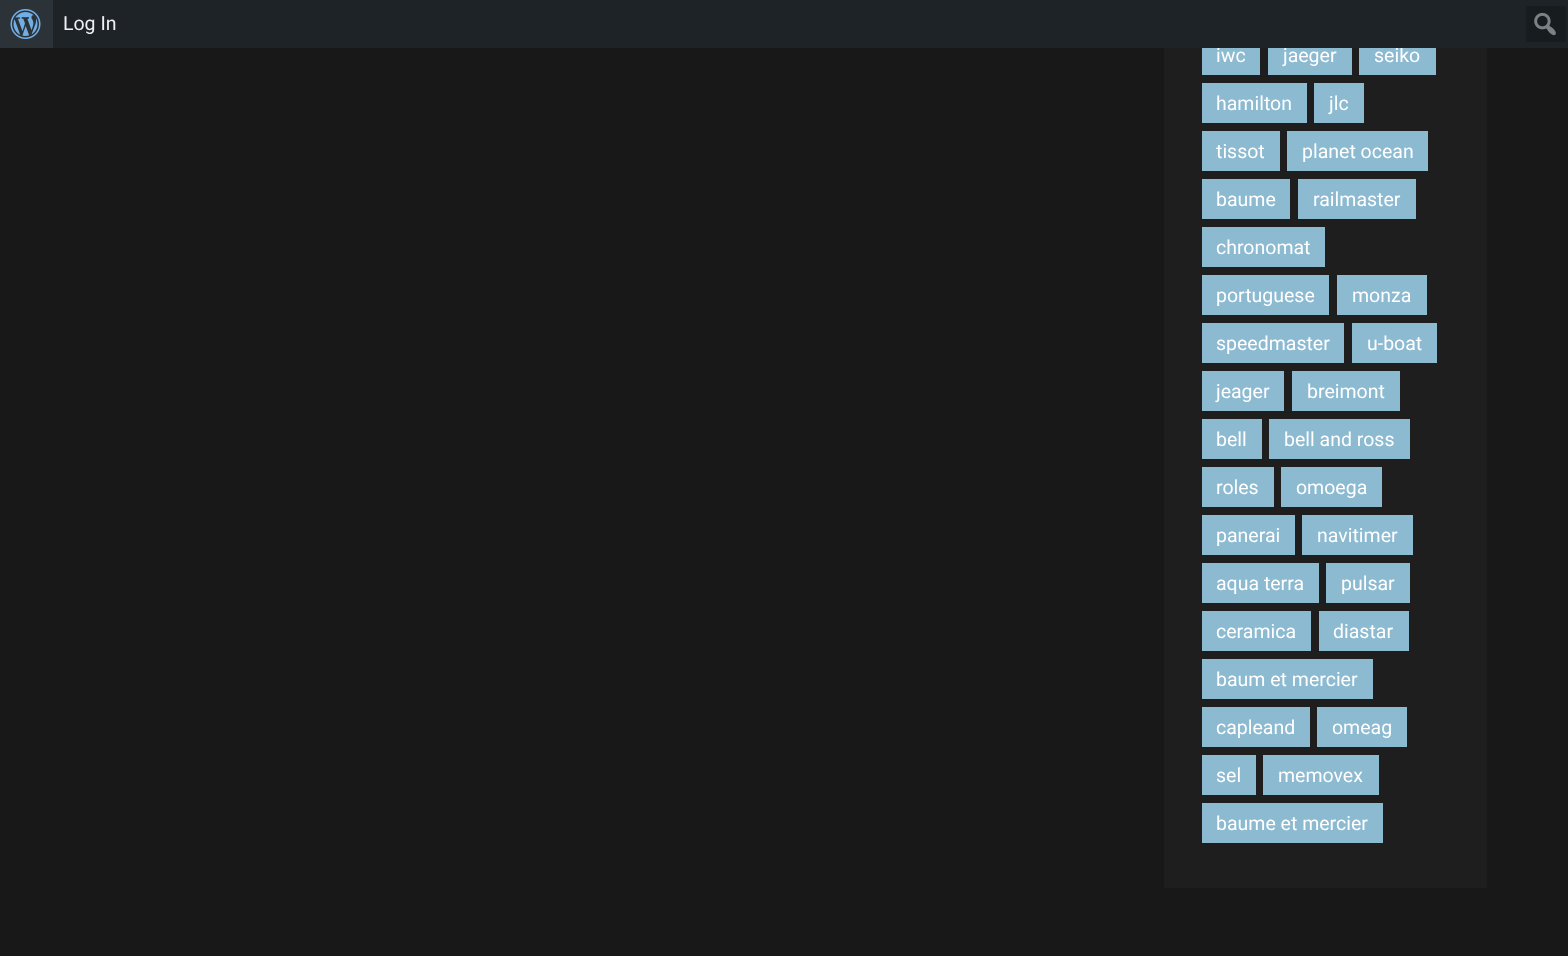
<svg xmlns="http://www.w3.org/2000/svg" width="1568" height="956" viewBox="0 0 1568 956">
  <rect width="100%" height="100%" fill="#181818"/>
  <rect x="1164" y="48" width="323" height="840" fill="#1e1e1e"/>
  <rect x="1202" y="48" width="58" height="27" fill="#8bbad1"/>
  <text x="1216" y="62" font-family="Roboto" font-size="19.5" fill="#ffffff">iwc</text>
  <rect x="1268" y="48" width="84" height="27" fill="#8bbad1"/>
  <text x="1283" y="62" font-family="Roboto" font-size="19.5" fill="#ffffff">jaeger</text>
  <rect x="1359" y="48" width="77" height="27" fill="#8bbad1"/>
  <text x="1374" y="62" font-family="Roboto" font-size="19.5" fill="#ffffff">seiko</text>
  <rect x="53" y="0" width="1515" height="48" fill="#1d2327"/>
  <rect x="1526" y="6" width="40" height="36" fill="#171c1f"/>
  <rect x="0" y="0" width="53" height="48" fill="#2c3338"/>
  <image x="10" y="9" width="31" height="30" href="img1.png"/>
  <text x="63" y="30" font-family="Roboto" font-size="19.5" fill="#f0f0f1">Log In</text>
  <image x="1534" y="12" width="22" height="24" href="img2.png"/>
  <rect x="1202" y="83" width="105" height="40" fill="#8bbad1"/>
  <text x="1216" y="110" font-family="Roboto" font-size="19.5" fill="#ffffff">hamilton</text>
  <rect x="1314" y="83" width="50" height="40" fill="#8bbad1"/>
  <text x="1329" y="110" font-family="Roboto" font-size="19.5" fill="#ffffff">jlc</text>
  <rect x="1202" y="131" width="78" height="40" fill="#8bbad1"/>
  <text x="1216" y="158" font-family="Roboto" font-size="19.5" fill="#ffffff">tissot</text>
  <rect x="1287" y="131" width="141" height="40" fill="#8bbad1"/>
  <text x="1302" y="158" font-family="Roboto" font-size="19.5" fill="#ffffff">planet ocean</text>
  <rect x="1202" y="179" width="88" height="40" fill="#8bbad1"/>
  <text x="1216" y="206" font-family="Roboto" font-size="19.5" fill="#ffffff">baume</text>
  <rect x="1298" y="179" width="118" height="40" fill="#8bbad1"/>
  <text x="1313" y="206" font-family="Roboto" font-size="19.5" fill="#ffffff">railmaster</text>
  <rect x="1202" y="227" width="123" height="40" fill="#8bbad1"/>
  <text x="1216" y="254" font-family="Roboto" font-size="19.5" fill="#ffffff">chronomat</text>
  <rect x="1202" y="275" width="127" height="40" fill="#8bbad1"/>
  <text x="1216" y="302" font-family="Roboto" font-size="19.5" fill="#ffffff">portuguese</text>
  <rect x="1337" y="275" width="90" height="40" fill="#8bbad1"/>
  <text x="1352" y="302" font-family="Roboto" font-size="19.5" fill="#ffffff">monza</text>
  <rect x="1202" y="323" width="142" height="40" fill="#8bbad1"/>
  <text x="1216" y="350" font-family="Roboto" font-size="19.5" fill="#ffffff">speedmaster</text>
  <rect x="1352" y="323" width="85" height="40" fill="#8bbad1"/>
  <text x="1367" y="350" font-family="Roboto" font-size="19.5" fill="#ffffff">u-boat</text>
  <rect x="1202" y="371" width="82" height="40" fill="#8bbad1"/>
  <text x="1216" y="398" font-family="Roboto" font-size="19.5" fill="#ffffff">jeager</text>
  <rect x="1292" y="371" width="108" height="40" fill="#8bbad1"/>
  <text x="1307" y="398" font-family="Roboto" font-size="19.5" fill="#ffffff">breimont</text>
  <rect x="1202" y="419" width="60" height="40" fill="#8bbad1"/>
  <text x="1216" y="446" font-family="Roboto" font-size="19.5" fill="#ffffff">bell</text>
  <rect x="1269" y="419" width="141" height="40" fill="#8bbad1"/>
  <text x="1284" y="446" font-family="Roboto" font-size="19.5" fill="#ffffff">bell and ross</text>
  <rect x="1202" y="467" width="72" height="40" fill="#8bbad1"/>
  <text x="1216" y="494" font-family="Roboto" font-size="19.5" fill="#ffffff">roles</text>
  <rect x="1281" y="467" width="101" height="40" fill="#8bbad1"/>
  <text x="1296" y="494" font-family="Roboto" font-size="19.5" fill="#ffffff">omoega</text>
  <rect x="1202" y="515" width="93" height="40" fill="#8bbad1"/>
  <text x="1216" y="542" font-family="Roboto" font-size="19.5" fill="#ffffff">panerai</text>
  <rect x="1302" y="515" width="111" height="40" fill="#8bbad1"/>
  <text x="1317" y="542" font-family="Roboto" font-size="19.5" fill="#ffffff">navitimer</text>
  <rect x="1202" y="563" width="117" height="40" fill="#8bbad1"/>
  <text x="1216" y="590" font-family="Roboto" font-size="19.5" fill="#ffffff">aqua terra</text>
  <rect x="1326" y="563" width="84" height="40" fill="#8bbad1"/>
  <text x="1341" y="590" font-family="Roboto" font-size="19.5" fill="#ffffff">pulsar</text>
  <rect x="1202" y="611" width="109" height="40" fill="#8bbad1"/>
  <text x="1216" y="638" font-family="Roboto" font-size="19.5" fill="#ffffff">ceramica</text>
  <rect x="1319" y="611" width="90" height="40" fill="#8bbad1"/>
  <text x="1333" y="638" font-family="Roboto" font-size="19.5" fill="#ffffff">diastar</text>
  <rect x="1202" y="659" width="171" height="40" fill="#8bbad1"/>
  <text x="1216" y="686" font-family="Roboto" font-size="19.5" fill="#ffffff">baum et mercier</text>
  <rect x="1202" y="707" width="108" height="40" fill="#8bbad1"/>
  <text x="1216" y="734" font-family="Roboto" font-size="19.5" fill="#ffffff">capleand</text>
  <rect x="1317" y="707" width="90" height="40" fill="#8bbad1"/>
  <text x="1332" y="734" font-family="Roboto" font-size="19.5" fill="#ffffff">omeag</text>
  <rect x="1202" y="755" width="54" height="40" fill="#8bbad1"/>
  <text x="1216" y="782" font-family="Roboto" font-size="19.5" fill="#ffffff">sel</text>
  <rect x="1263" y="755" width="116" height="40" fill="#8bbad1"/>
  <text x="1278" y="782" font-family="Roboto" font-size="19.5" fill="#ffffff">memovex</text>
  <rect x="1202" y="803" width="181" height="40" fill="#8bbad1"/>
  <text x="1216" y="830" font-family="Roboto" font-size="19.5" fill="#ffffff">baume et mercier</text>
</svg>
